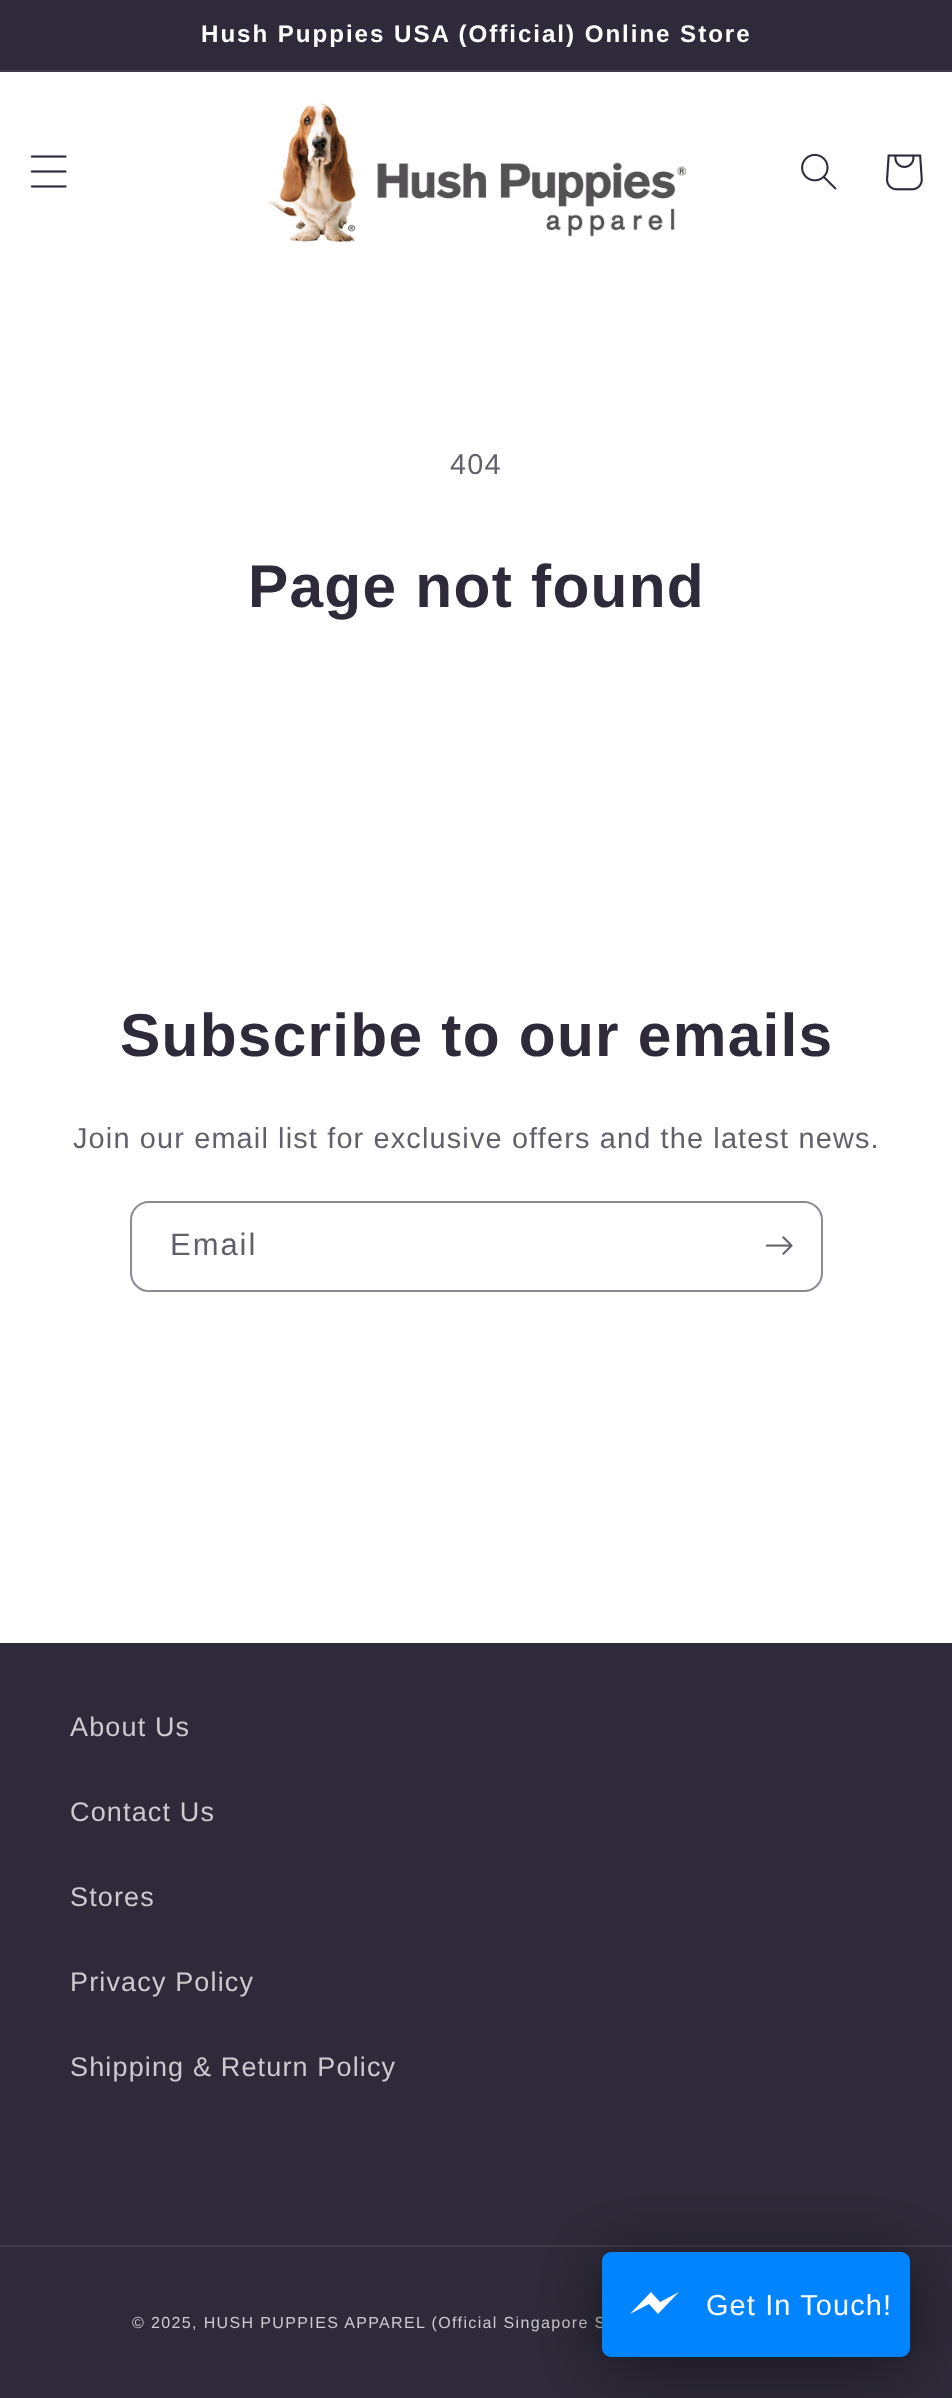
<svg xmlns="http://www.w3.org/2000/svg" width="952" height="2398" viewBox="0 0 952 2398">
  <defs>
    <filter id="blur1" x="-50%" y="-200%" width="200%" height="500%"><feGaussianBlur stdDeviation="35"/></filter>
  </defs>
  <rect width="100%" height="100%" fill="#ffffff"/>
  <rect x="0" y="0" width="952" height="70" fill="#2e2a39"/>
  <rect x="0" y="70" width="952" height="2" fill="#3f3b49"/>
  <text x="201" y="42" font-family="Arimo" font-size="24.15" font-weight="bold" letter-spacing="1.95" fill="#ffffff">Hush Puppies USA (Official) Online Store</text>
  <image x="30" y="155" width="37" height="33" href="img1.png"/>
  <image x="267" y="103" width="419" height="139" href="img2.png"/>
  <image x="801" y="153" width="36" height="37" href="img3.png"/>
  <image x="886" y="154" width="37" height="37" href="img4.png"/>
  <text x="450" y="474" font-family="Arimo" font-size="28.9" letter-spacing="1.15" fill="#625f6b">404</text>
  <text x="248" y="607" font-family="Arimo" font-size="60.4" font-weight="bold" letter-spacing="1.25" fill="#2e2a39">Page not found</text>
  <text x="120" y="1056" font-family="Arimo" font-size="60.4" font-weight="bold" letter-spacing="1.25" fill="#2e2a39">Subscribe to our emails</text>
  <text x="73" y="1148" font-family="Arimo" font-size="28.9" letter-spacing="1.15" fill="#625f6b">Join our email list for exclusive offers and the latest news.</text>
  <rect x="131" y="1202" width="691" height="89" rx="18" fill="none" stroke="#8c8a92" stroke-width="2"/>
  <text x="170" y="1255" font-family="Arimo" font-size="31" letter-spacing="1.95" fill="#625f6b">Email</text>
  <image x="765" y="1236" width="28" height="19" href="img5.png"/>
  <rect x="0" y="1643" width="952" height="755" fill="#2e2a39"/>
  <text x="70" y="1736" font-family="Arimo" font-size="27" letter-spacing="1.15" fill="#cbcace">About Us</text>
  <text x="70" y="1821" font-family="Arimo" font-size="27" letter-spacing="1.15" fill="#cbcace">Contact Us</text>
  <text x="70" y="1906" font-family="Arimo" font-size="27" letter-spacing="1.15" fill="#cbcace">Stores</text>
  <text x="70" y="1991" font-family="Arimo" font-size="27" letter-spacing="1.15" fill="#cbcace">Privacy Policy</text>
  <text x="70" y="2076" font-family="Arimo" font-size="27" letter-spacing="1.15" fill="#cbcace">Shipping &amp; Return Policy</text>
  <rect x="0" y="2245" width="952" height="2" fill="#3f3b49"/>
  <text x="132" y="2328" font-family="Arimo" font-size="16.05" letter-spacing="1.35" fill="#cbcace">© 2025, HUSH PUPPIES APPAREL (Official Singapore S</text>
  <rect x="602" y="2261" width="308" height="105" rx="9" fill="#000000" fill-opacity="0.5" filter="url(#blur1)"/>
  <rect x="602" y="2252" width="308" height="105" rx="9" fill="#0084ff"/>
  <path d="M658 2314L649 2304L630 2314L651 2292L660 2302L679 2292Z" fill="#ffffff"/>
  <text x="706" y="2315" font-family="Arimo" font-size="28.9" letter-spacing="1.15" fill="#ffffff">Get In Touch!</text>
</svg>
